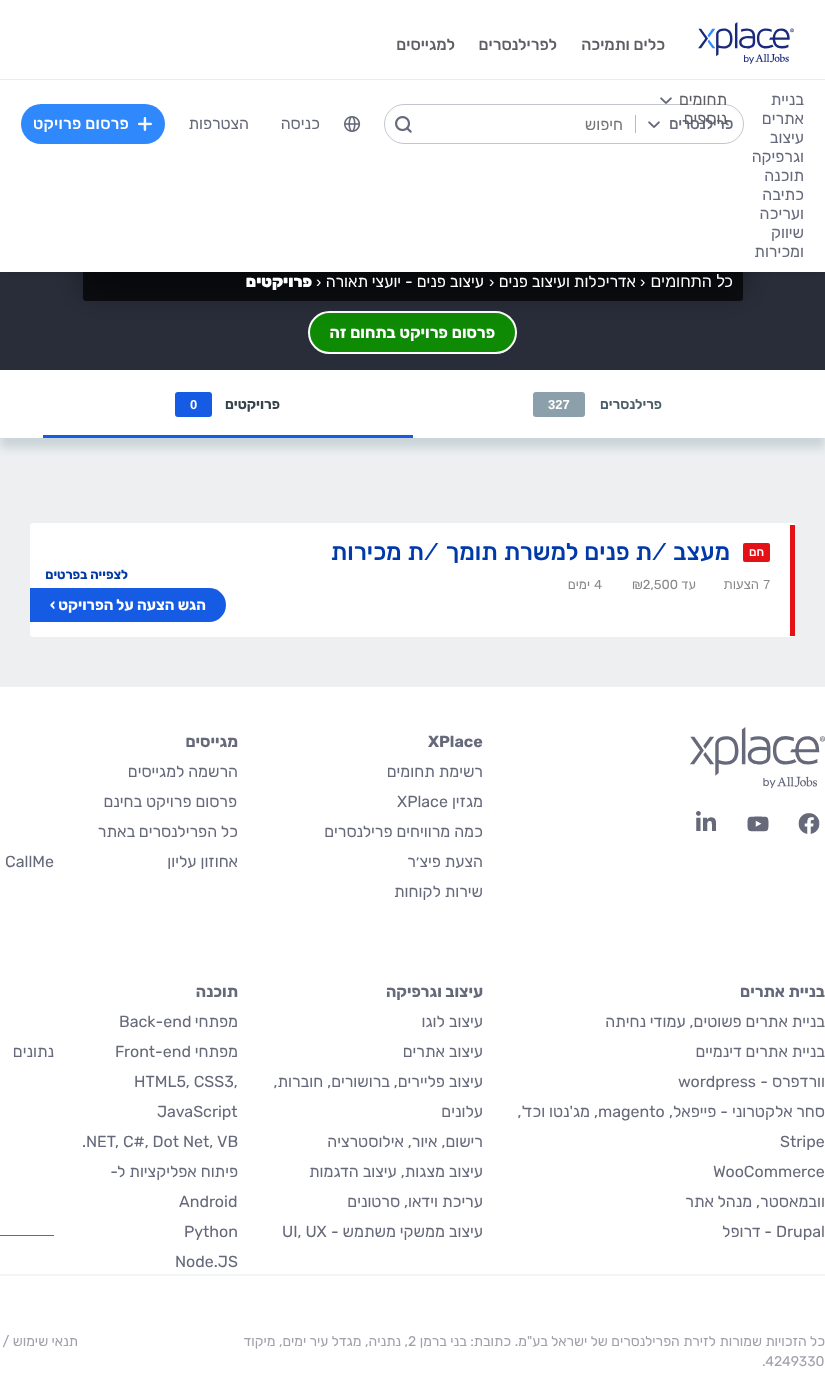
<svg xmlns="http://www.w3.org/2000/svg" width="825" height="1375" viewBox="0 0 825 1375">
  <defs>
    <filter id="blur1" x="-50%" y="-200%" width="200%" height="500%"><feGaussianBlur stdDeviation="15"/></filter>
    <filter id="blur2" x="-50%" y="-200%" width="200%" height="500%"><feGaussianBlur stdDeviation="5"/></filter>
  </defs>
  <rect width="100%" height="100%" fill="#ffffff"/>
  <rect x="0" y="272" width="825" height="98" fill="#282d39"/>
  <rect x="309" y="312" width="207" height="41" rx="20.5" fill="#0e8a04" stroke="#ffffff" stroke-width="2"/>
  <rect x="83" y="180" width="660" height="112" rx="3" fill="#000000" fill-opacity="0.4" filter="url(#blur1)"/>
  <rect x="83" y="262" width="660" height="39" rx="3" fill="#000000" fill-opacity="0.7"/>
  <rect x="0" y="0" width="825" height="272" fill="#000000" fill-opacity="0.15" filter="url(#blur2)"/>
  <rect x="0" y="0" width="825" height="272" fill="#ffffff"/>
  <image x="698" y="22" width="96" height="42" href="img1.png"/>
  <text x="665" y="50" font-family="Rubik" font-size="16" font-weight="500" direction="rtl" fill="#5e5f64">כלים ותמיכה</text>
  <text x="557" y="50" font-family="Rubik" font-size="16" font-weight="500" direction="rtl" fill="#5e5f64">לפרילנסרים</text>
  <text x="455" y="50" font-family="Rubik" font-size="16" font-weight="500" direction="rtl" fill="#5e5f64">למגייסים</text>
  <rect x="0" y="79" width="825" height="1" fill="#ebecee"/>
  <text x="804" y="105" font-family="'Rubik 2'" font-size="16" direction="rtl" fill="#66697a">בניית</text>
  <text x="804" y="124" font-family="'Rubik 2'" font-size="16" direction="rtl" fill="#66697a">אתרים</text>
  <text x="804" y="143" font-family="'Rubik 2'" font-size="16" direction="rtl" fill="#66697a">עיצוב</text>
  <text x="804" y="162" font-family="'Rubik 2'" font-size="16" direction="rtl" fill="#66697a">וגרפיקה</text>
  <text x="804" y="181" font-family="'Rubik 2'" font-size="16" direction="rtl" fill="#66697a">תוכנה</text>
  <text x="804" y="200" font-family="'Rubik 2'" font-size="16" direction="rtl" fill="#66697a">כתיבה</text>
  <text x="804" y="219" font-family="'Rubik 2'" font-size="16" direction="rtl" fill="#66697a">ועריכה</text>
  <text x="804" y="238" font-family="'Rubik 2'" font-size="16" direction="rtl" fill="#66697a">שיווק</text>
  <text x="804" y="257" font-family="'Rubik 2'" font-size="16" direction="rtl" fill="#66697a">ומכירות</text>
  <rect x="384.5" y="104.5" width="359" height="39" rx="19.5" fill="none" stroke="#c5c6cd"/>
  <text x="727" y="105" font-family="'Rubik 2'" font-size="16" direction="rtl" fill="#5e5f64">תחומים</text>
  <text x="733" y="129" font-family="'Rubik 2'" font-size="15" font-weight="bold" direction="rtl" fill="#66697a">פרילנסרים</text>
  <text x="727" y="124" font-family="'Rubik 2'" font-size="16" direction="rtl" fill="#5e5f64">נוספים</text>
  <image x="660" y="97" width="12" height="7" href="img2.png"/>
  <image x="648" y="121" width="12" height="7" href="img2.png"/>
  <rect x="635" y="115" width="1" height="18" fill="#babbc3"/>
  <text x="623" y="130" font-family="'Rubik 2'" font-size="16" direction="rtl" fill="#757575">חיפוש</text>
  <image x="395" y="116" width="17" height="17" href="img3.png"/>
  <image x="344" y="116" width="17" height="16" href="img4.png"/>
  <text x="320" y="129" font-family="Rubik" font-size="16" direction="rtl" fill="#66697a">כניסה</text>
  <text x="249" y="129" font-family="'Rubik 2'" font-size="16" direction="rtl" fill="#66697a">הצטרפות</text>
  <rect x="21" y="104" width="144" height="40" rx="20" fill="#2f89fc"/>
  <image x="138" y="117" width="14" height="14" href="img5.png"/>
  <text x="129" y="129" font-family="'Rubik 2'" font-size="16" font-weight="500" letter-spacing="0.25" direction="rtl" fill="#ffffff">פרסום פרויקט</text>
  <rect x="0" y="438" width="825" height="249" fill="#edeff0"/>
  <text x="733" y="287" font-family="Liberation Sans" font-size="16" direction="rtl" fill="#ffffff">כל התחומים</text>
  <text x="640" y="287" font-family="Liberation Sans" font-size="16" fill="#ffffff">›</text>
  <text x="636" y="287" font-family="Rubik" font-size="16" direction="rtl" fill="#ffffff">אדריכלות ועיצוב פנים</text>
  <text x="489" y="287" font-family="Liberation Sans" font-size="16" fill="#ffffff">›</text>
  <text x="484" y="287" font-family="Rubik" font-size="16" direction="rtl" fill="#ffffff">עיצוב פנים - יועצי תאורה</text>
  <text x="316" y="287" font-family="Liberation Sans" font-size="16" fill="#ffffff">›</text>
  <text x="312" y="287" font-family="Rubik" font-size="16" font-weight="900" direction="rtl" fill="#ffffff">פרויקטים</text>
  <text x="495" y="338" word-spacing="0.5" font-family="Rubik" font-size="16" font-weight="bold" direction="rtl" fill="#ffffff">פרסום פרויקט בתחום זה</text>
  <rect x="0" y="380" width="825" height="68" fill="#cad4d9" filter="url(#blur2)"/>
  <rect x="0" y="372" width="825" height="66" fill="#ffffff"/>
  <text x="662" y="409" font-family="Rubik" font-size="14" font-weight="600" direction="rtl" fill="#4c5e67">פרילנסרים</text>
  <rect x="533" y="392" width="52" height="25" rx="3" fill="#8ba0aa"/>
  <text x="548" y="409" font-family="Liberation Sans" font-size="13" font-weight="bold" fill="#ffffff">327</text>
  <rect x="43" y="435" width="370" height="3" fill="#155be3"/>
  <text x="280" y="409" font-family="Rubik" font-size="14" font-weight="bold" direction="rtl" fill="#36444b">פרויקטים</text>
  <rect x="175" y="392" width="37" height="25" rx="3" fill="#155be3"/>
  <text x="190" y="409" font-family="Liberation Sans" font-size="13" font-weight="bold" fill="#ffffff">0</text>
  <rect x="30" y="523" width="765" height="114" rx="3" fill="#ffffff"/>
  <rect x="790" y="525" width="5" height="111" fill="#e41216"/>
  <rect x="743" y="543" width="27" height="19" rx="2" fill="#e41216"/>
  <text x="764" y="556" font-family="Rubik" font-size="12" font-weight="500" direction="rtl" fill="#ffffff">חם</text>
  <text x="730" y="560" font-family="Rubik" font-size="24" font-weight="500" direction="rtl" fill="#0039a8">מעצב</text>
  <text x="667" y="560" font-family="Raleway" font-size="24" font-weight="500" direction="rtl" fill="#0039a8">/</text>
  <text x="652" y="560" word-spacing="0.5" font-family="Rubik" font-size="24" font-weight="500" direction="rtl" fill="#0039a8">ת פנים למשרת תומך</text>
  <text x="439" y="560" font-family="Raleway" font-size="24" font-weight="500" direction="rtl" fill="#0039a8">/</text>
  <text x="424" y="560" word-spacing="0.5" font-family="Rubik" font-size="24" font-weight="500" direction="rtl" fill="#0039a8">ת מכירות</text>
  <text x="763" y="589" font-family="Liberation Sans" font-size="13" fill="#888888">7</text>
  <text x="759" y="589" font-family="Liberation Sans" font-size="13" direction="rtl" fill="#888888">הצעות</text>
  <text x="696" y="589" font-family="Rubik" font-size="13" direction="rtl" fill="#888888">עד</text>
  <text x="632" y="589" font-family="Rubik" font-size="13" fill="#888888">₪2,500</text>
  <text x="594" y="589" font-family="Rubik" font-size="13" fill="#888888">4</text>
  <text x="590" y="589" font-family="Rubik" font-size="13" direction="rtl" fill="#888888">ימים</text>
  <text x="128" y="579" font-family="Rubik" font-size="13" font-weight="bold" direction="rtl" fill="#0039a8">לצפייה בפרטים</text>
  <path d="M30 588H209C218.5 588 226 595.5 226 605C226 614.5 218.5 622 209 622H30Z" fill="#155be3"/>
  <text x="206" y="610" font-family="Rubik" font-size="15" font-weight="bold" direction="rtl" fill="#ffffff">הגש הצעה על הפרויקט ›</text>
  <text x="428" y="747" font-family="Rubik" font-size="16" font-weight="bold" fill="#66697a">XPlace</text>
  <text x="483" y="777" font-family="Rubik" font-size="16" direction="rtl" fill="#66697a">רשימת תחומים</text>
  <text x="483" y="807" font-family="Rubik" font-size="16" direction="rtl" fill="#66697a">מגזין</text>
  <text x="397" y="807" font-family="Rubik" font-size="16" fill="#66697a">XPlace</text>
  <text x="483" y="837" font-family="Rubik" font-size="16" direction="rtl" fill="#66697a">כמה מרוויחים פרילנסרים</text>
  <text x="483" y="867" font-family="Rubik" font-size="16" direction="rtl" fill="#66697a">הצעת פיצ׳ר</text>
  <text x="483" y="897" font-family="Rubik" font-size="16" direction="rtl" fill="#66697a">שירות לקוחות</text>
  <text x="483" y="997" font-family="Rubik" font-size="16" font-weight="bold" direction="rtl" fill="#66697a">עיצוב וגרפיקה</text>
  <text x="483" y="1027" font-family="Rubik" font-size="16" direction="rtl" fill="#66697a">עיצוב לוגו</text>
  <text x="483" y="1057" font-family="Rubik" font-size="16" direction="rtl" fill="#66697a">עיצוב אתרים</text>
  <text x="483" y="1087" font-family="Rubik" font-size="16" direction="rtl" fill="#66697a">עיצוב פליירים, ברושורים, חוברות,</text>
  <text x="483" y="1117" font-family="Rubik" font-size="16" direction="rtl" fill="#66697a">עלונים</text>
  <text x="483" y="1147" font-family="Rubik" font-size="16" direction="rtl" fill="#66697a">רישום, איור, אילוסטרציה</text>
  <text x="483" y="1177" font-family="Rubik" font-size="16" direction="rtl" fill="#66697a">עיצוב מצגות, עיצוב הדגמות</text>
  <text x="483" y="1207" font-family="Rubik" font-size="16" direction="rtl" fill="#66697a">עריכת וידאו, סרטונים</text>
  <text x="483" y="1237" font-family="Rubik" font-size="16" direction="rtl" fill="#66697a">עיצוב ממשקי משתמש -</text>
  <text x="282" y="1237" font-family="Rubik" font-size="16" fill="#66697a">UI, UX</text>
  <text x="238" y="747" font-family="Rubik" font-size="16" font-weight="bold" direction="rtl" fill="#66697a">מגייסים</text>
  <text x="238" y="777" font-family="Rubik" font-size="16" direction="rtl" fill="#66697a">הרשמה למגייסים</text>
  <text x="237" y="807" font-family="Rubik" font-size="16" direction="rtl" fill="#66697a">פרסום פרויקט בחינם</text>
  <text x="238" y="837" font-family="Rubik" font-size="16" direction="rtl" fill="#66697a">כל הפרילנסרים באתר</text>
  <text x="238" y="867" font-family="Rubik" font-size="16" direction="rtl" fill="#66697a">אחוזון עליון</text>
  <text x="238" y="997" font-family="Rubik" font-size="16" font-weight="bold" direction="rtl" fill="#66697a">תוכנה</text>
  <text x="238" y="1027" font-family="Rubik" font-size="16" direction="rtl" fill="#66697a">מפתחי</text>
  <text x="119" y="1027" font-family="Rubik" font-size="16" fill="#66697a">Back-end</text>
  <text x="238" y="1057" font-family="Rubik" font-size="16" direction="rtl" fill="#66697a">מפתחי</text>
  <text x="115" y="1057" font-family="Rubik" font-size="16" fill="#66697a">Front-end</text>
  <text x="134" y="1087" font-family="Rubik" font-size="16" fill="#66697a">HTML5, CSS3,</text>
  <text x="157" y="1117" font-family="Rubik" font-size="16" fill="#66697a">JavaScript</text>
  <text x="82" y="1147" font-family="Rubik" font-size="16" fill="#66697a">.NET, C#, Dot Net, VB</text>
  <text x="238" y="1177" font-family="Rubik" font-size="16" direction="rtl" fill="#66697a">פיתוח אפליקציות ל-</text>
  <text x="179" y="1207" font-family="Rubik" font-size="16" fill="#66697a">Android</text>
  <text x="184" y="1237" font-family="Rubik" font-size="16" fill="#66697a">Python</text>
  <text x="175" y="1267" font-family="Rubik" font-size="16" fill="#66697a">Node.JS</text>
  <text x="5" y="867" font-family="Rubik" font-size="16" fill="#66697a">CallMe</text>
  <text x="54" y="1057" font-family="Rubik" font-size="16" direction="rtl" fill="#66697a">נתונים</text>
  <rect x="0" y="1235" width="54" height="1" fill="#66697a"/>
  <image x="690" y="727" width="135" height="61" href="img6.png"/>
  <image x="798" y="813" width="22" height="21" href="img7.png"/>
  <image x="747" y="816" width="22" height="16" href="img8.png"/>
  <image x="696" y="811" width="20" height="20" href="img9.png"/>
  <text x="825" y="997" font-family="Rubik" font-size="16" font-weight="bold" direction="rtl" fill="#66697a">בניית אתרים</text>
  <text x="825" y="1027" font-family="Rubik" font-size="16" direction="rtl" fill="#66697a">בניית אתרים פשוטים, עמודי נחיתה</text>
  <text x="825" y="1057" font-family="Rubik" font-size="16" direction="rtl" fill="#66697a">בניית אתרים דינמיים</text>
  <text x="825" y="1087" font-family="Rubik" font-size="16" direction="rtl" fill="#66697a">וורדפרס -</text>
  <text x="678" y="1087" font-family="Rubik" font-size="16" fill="#66697a">wordpress</text>
  <text x="825" y="1117" font-family="Rubik" font-size="16" direction="rtl" fill="#66697a">סחר אלקטרוני - פייפאל,</text>
  <text x="598" y="1117" font-family="Rubik" font-size="16" fill="#66697a">magento</text>
  <text x="598" y="1117" font-family="Rubik" font-size="16" direction="rtl" fill="#66697a">, מג'נטו וכד',</text>
  <text x="780" y="1147" font-family="Rubik" font-size="16" fill="#66697a">Stripe</text>
  <text x="713" y="1177" font-family="Rubik" font-size="16" fill="#66697a">WooCommerce</text>
  <text x="825" y="1207" font-family="Rubik" font-size="16" direction="rtl" fill="#66697a">וובמאסטר, מנהל אתר</text>
  <text x="776" y="1237" font-family="Rubik" font-size="16" fill="#66697a">Drupal</text>
  <text x="772" y="1237" font-family="Rubik" font-size="16" direction="rtl" fill="#66697a">- דרופל</text>
  <rect x="0" y="1274" width="825" height="2" fill="#f3f4f5"/>
  <text x="825" y="1346" word-spacing="0.1" font-family="Rubik" font-size="14" direction="rtl" fill="#9fa1ab">כל הזכויות שמורות לזירת הפרילנסרים של ישראל בע"מ. כתובת: בני ברמן</text>
  <text x="408" y="1346" font-family="Rubik" font-size="14" fill="#9fa1ab">2</text>
  <text x="408" y="1346" font-family="Rubik" font-size="14" direction="rtl" fill="#9fa1ab">, נתניה, מגדל עיר ימים, מיקוד</text>
  <text x="762" y="1366" font-family="Rubik" font-size="14" fill="#9fa1ab">.4249330</text>
  <text x="78" y="1346" font-family="Rubik" font-size="14" direction="rtl" fill="#9fa1ab">תנאי שימוש /</text>
</svg>
